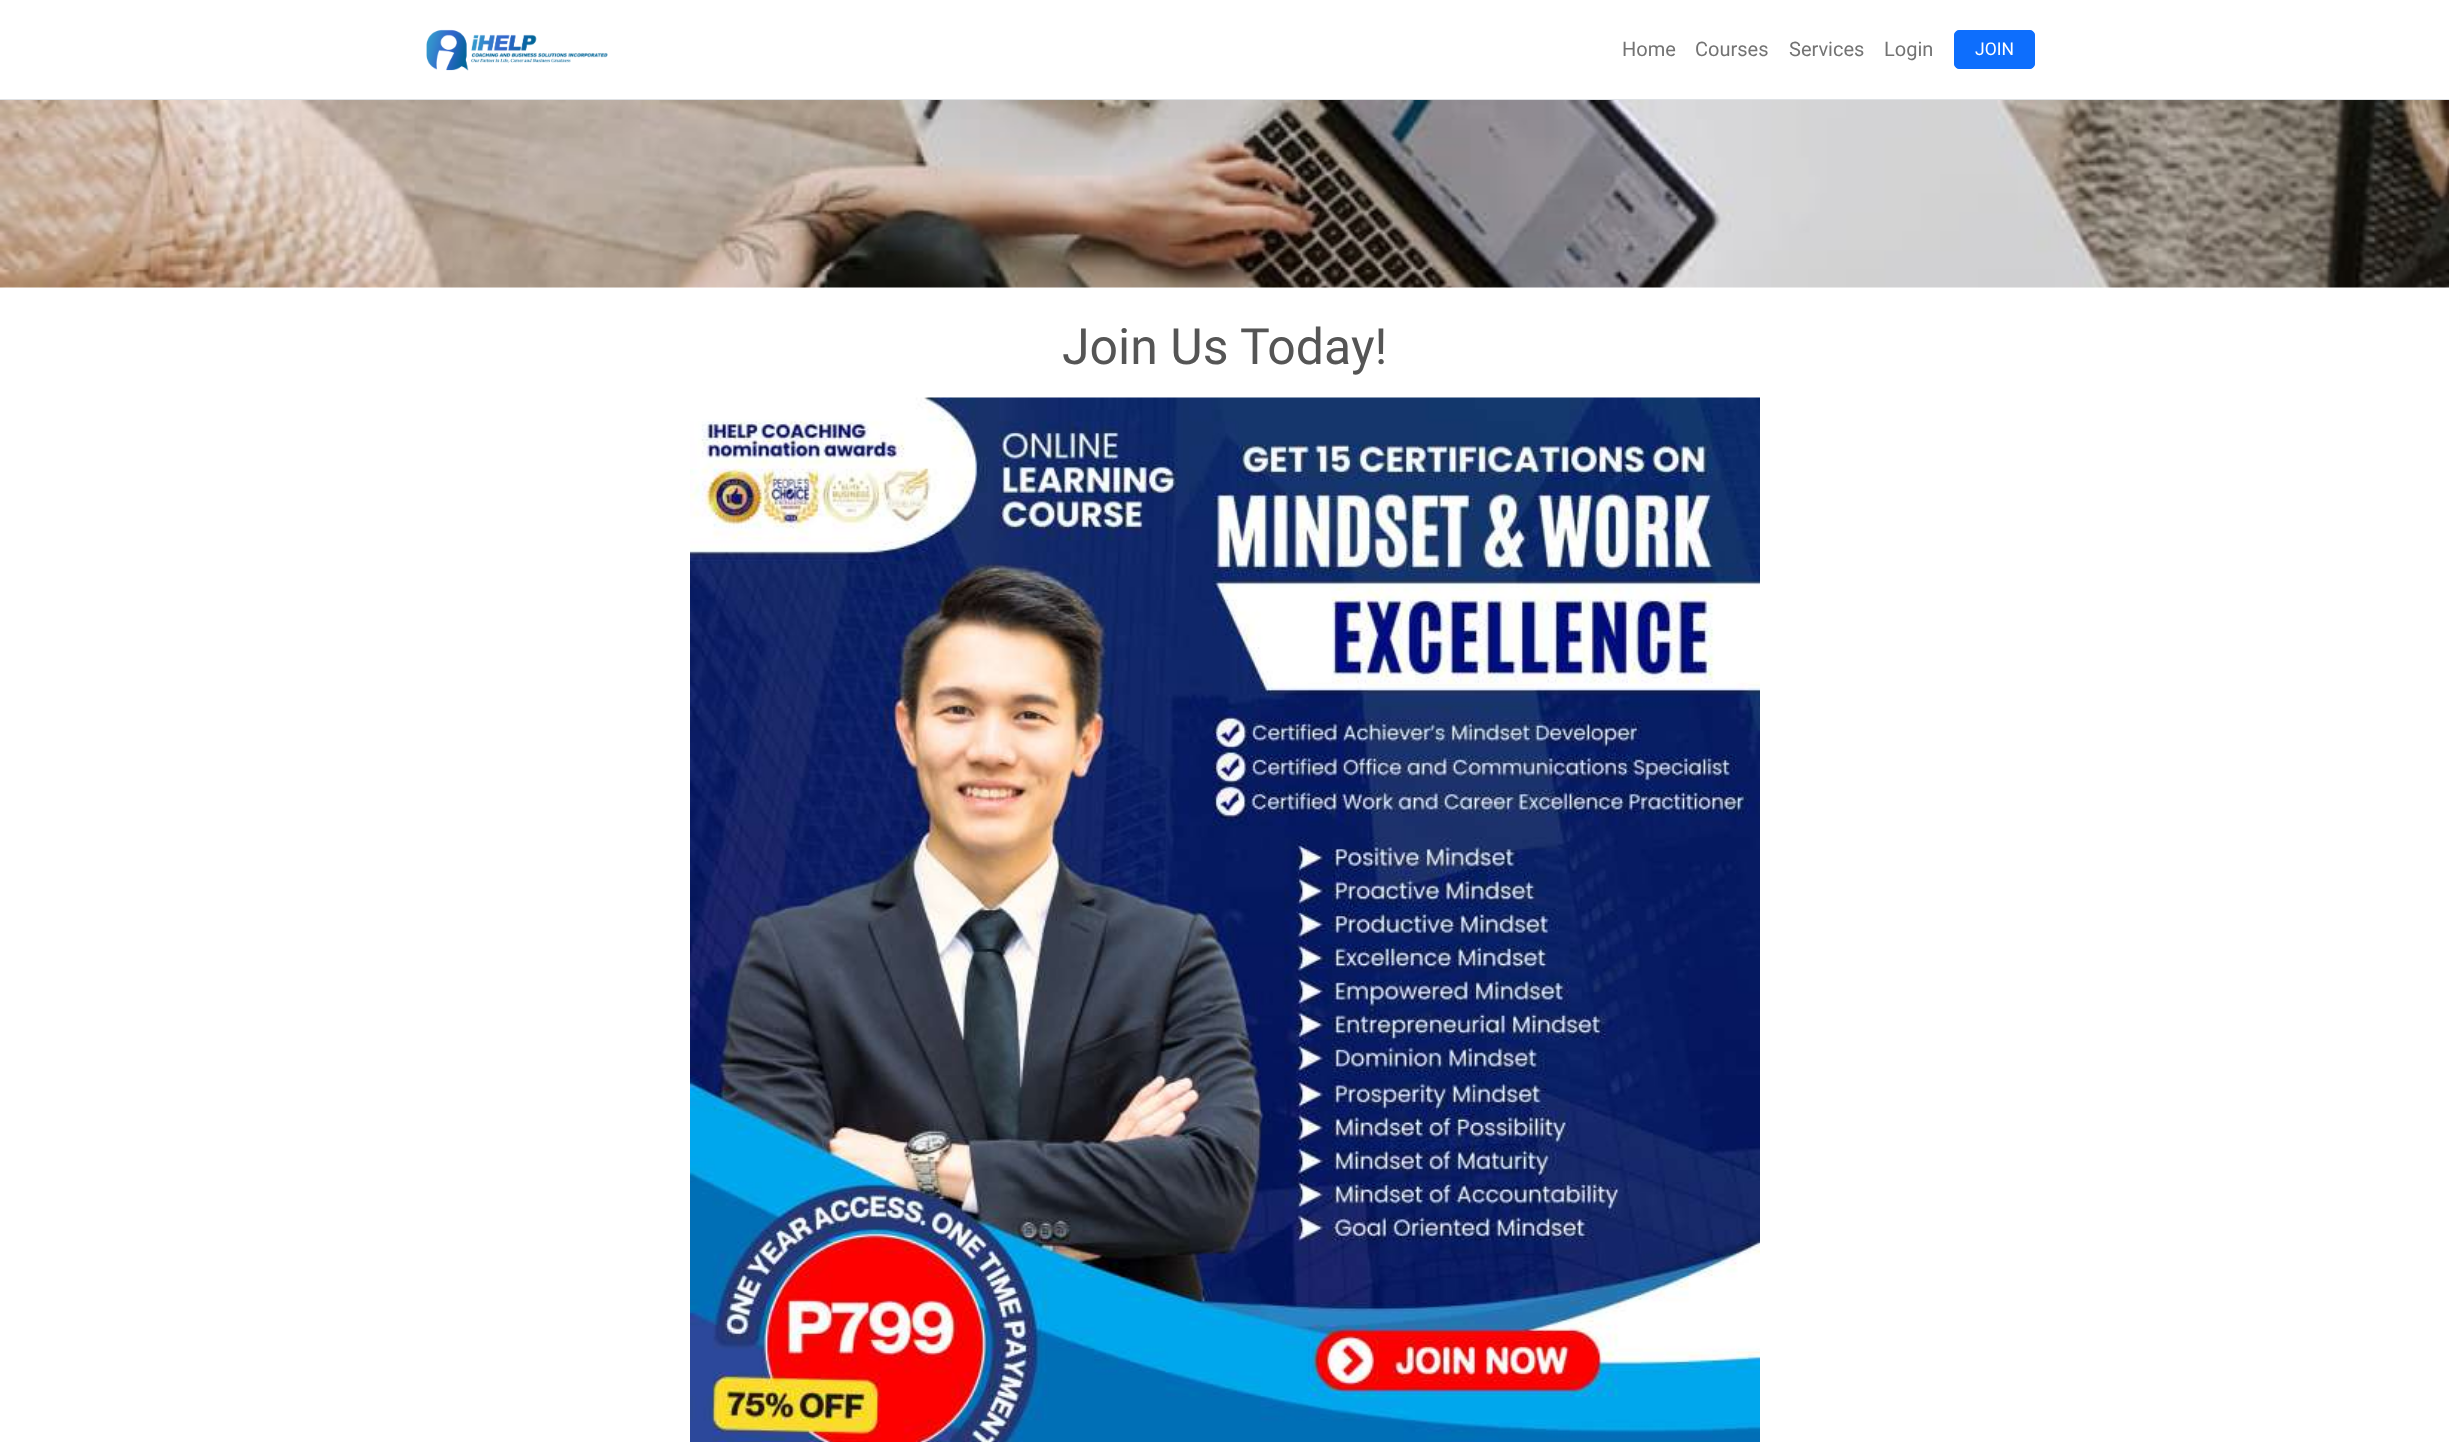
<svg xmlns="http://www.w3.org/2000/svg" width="2449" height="1442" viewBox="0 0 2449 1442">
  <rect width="100%" height="100%" fill="#ffffff"/>
  <rect x="0" y="99" width="2449" height="1" fill="#dee2e6"/>
  <image x="426" y="29" width="182" height="42" href="img1.png"/>
  <text x="1622" y="56" font-family="Roboto" font-size="20" fill="#737373">Home</text>
  <text x="1695" y="56" font-family="Roboto" font-size="20" fill="#737373">Courses</text>
  <text x="1789" y="56" font-family="Roboto" font-size="20" fill="#737373">Services</text>
  <text x="1884" y="56" font-family="Roboto" font-size="20" fill="#737373">Login</text>
  <rect x="1954.5" y="30.5" width="80" height="38" rx="4.5" fill="#0d6efd" stroke="#0d6efd"/>
  <text x="1975" y="55" font-family="Roboto" font-size="17.5" fill="#ffffff">JOIN</text>
  <image x="0" y="100" width="2449" height="188" href="img2.png"/>
  <text x="1062" y="364" font-family="Roboto" font-size="50" fill="#555555">Join Us Today!</text>
  <image x="690" y="397" width="1070" height="1045" href="img3.png"/>
</svg>
